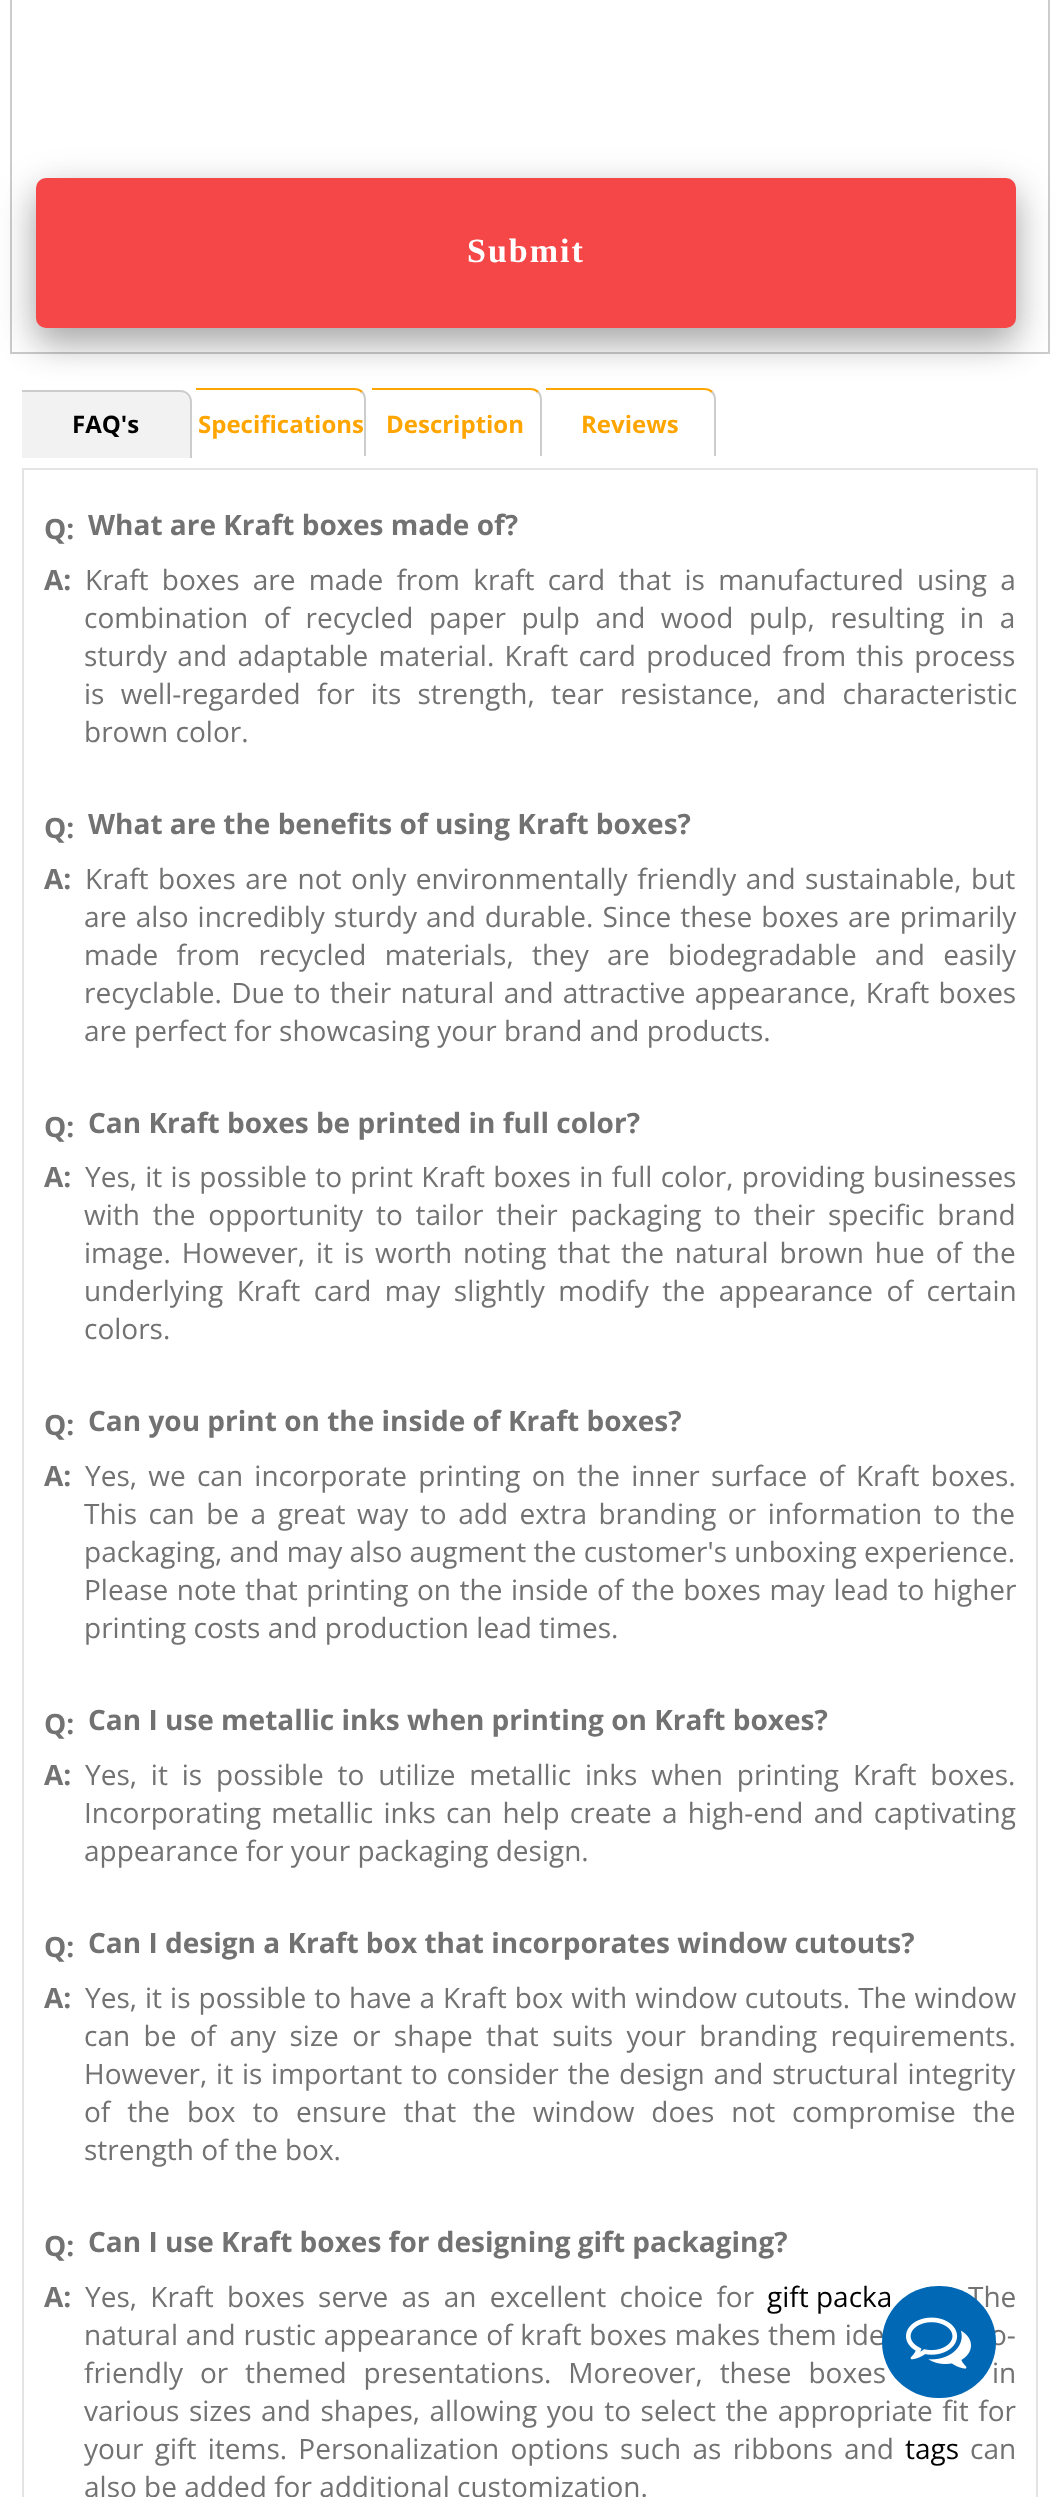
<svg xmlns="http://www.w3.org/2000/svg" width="1056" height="2497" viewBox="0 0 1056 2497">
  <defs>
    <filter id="blur1" x="-50%" y="-200%" width="200%" height="500%"><feGaussianBlur stdDeviation="20"/></filter>
    <filter id="blur2" x="-50%" y="-200%" width="200%" height="500%"><feGaussianBlur stdDeviation="16"/></filter>
  </defs>
  <rect width="100%" height="100%" fill="#ffffff"/>
  <rect x="11" y="-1" width="1038" height="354" fill="none" stroke="#cccccc" stroke-width="2"/>
  <rect x="36" y="190" width="980" height="150" rx="10" fill="#000000" fill-opacity="0.19" filter="url(#blur1)"/>
  <rect x="36" y="194" width="980" height="150" rx="10" fill="#000000" fill-opacity="0.2" filter="url(#blur2)"/>
  <rect x="36" y="178" width="980" height="150" rx="10" fill="#f54747"/>
  <text x="467" y="262" font-family="Liberation Serif" font-size="34" font-weight="bold" letter-spacing="2" fill="#ffffff">Submit</text>
  <path d="M22 390H180C186.5 390 192 395.5 192 402V458H22Z" fill="#f2f2f2"/>
  <path d="M22 390H180C187 390 192 395 192 402V458H22ZM22 392H180C186 392 190 396 190 402V458H22Z" fill="#cccccc" fill-rule="evenodd"/>
  <text x="72" y="433" font-family="Open Sans" font-size="24" font-weight="bold" fill="#000000">FAQ's</text>
  <path d="M196 388V390H354C357 390 360 391 361 393L363 391C360 389 358 388 354 388Z" fill="#ffa500"/>
  <path d="M364 456H366V400C366 396 365 394 363 391L361 393C363 394 364 397 364 400Z" fill="#cccccc"/>
  <text x="198" y="433" font-family="Open Sans" font-size="24" font-weight="bold" fill="#ffa500">Specifications</text>
  <path d="M372 388V390H530C533 390 536 391 537 393L539 391C536 389 534 388 530 388Z" fill="#ffa500"/>
  <path d="M540 456H542V400C542 396 541 394 539 391L537 393C539 394 540 397 540 400Z" fill="#cccccc"/>
  <text x="386" y="433" font-family="Open Sans" font-size="24" font-weight="bold" fill="#ffa500">Description</text>
  <path d="M546 388V390H704C707 390 710 391 711 393L713 391C710 389 708 388 704 388Z" fill="#ffa500"/>
  <path d="M714 456H716V400C716 396 715 394 713 391L711 393C713 394 714 397 714 400Z" fill="#cccccc"/>
  <text x="581" y="433" font-family="Open Sans" font-size="24" font-weight="bold" fill="#ffa500">Reviews</text>
  <rect x="23" y="469" width="1014" height="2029" fill="none" stroke="#e4e4e4" stroke-width="2"/>
  <text x="44" y="539" font-family="Open Sans" font-size="28" font-weight="bold" fill="#727272">Q:</text>
  <text x="88" y="535" font-family="Open Sans" font-size="28" font-weight="bold" fill="#727272">What are Kraft boxes made of?</text>
  <text x="44" y="590" font-family="Open Sans" font-size="28" font-weight="bold" fill="#727272">A:</text>
  <text x="85" y="590" word-spacing="6" font-family="Open Sans" font-size="28" fill="#727272">Kraft boxes are made from kraft card that is manufactured using a</text>
  <text x="84" y="628" word-spacing="8.25" font-family="Open Sans" font-size="28" fill="#727272">combination of recycled paper pulp and wood pulp, resulting in a</text>
  <text x="84" y="666" word-spacing="3" font-family="Open Sans" font-size="28" fill="#727272">sturdy and adaptable material. Kraft card produced from this process</text>
  <text x="84" y="704" word-spacing="9" font-family="Open Sans" font-size="28" fill="#727272">is well-regarded for its strength, tear resistance, and characteristic</text>
  <text x="84" y="742" font-family="Open Sans" font-size="28" fill="#727272">brown color.</text>
  <text x="44" y="838" font-family="Open Sans" font-size="28" font-weight="bold" fill="#727272">Q:</text>
  <text x="88" y="834" font-family="Open Sans" font-size="28" font-weight="bold" fill="#727272">What are the benefits of using Kraft boxes?</text>
  <text x="44" y="889" font-family="Open Sans" font-size="28" font-weight="bold" fill="#727272">A:</text>
  <text x="85" y="889" word-spacing="2.25" font-family="Open Sans" font-size="28" fill="#727272">Kraft boxes are not only environmentally friendly and sustainable, but</text>
  <text x="84" y="927" word-spacing="1.75" font-family="Open Sans" font-size="28" fill="#727272">are also incredibly sturdy and durable. Since these boxes are primarily</text>
  <text x="84" y="965" word-spacing="11" font-family="Open Sans" font-size="28" fill="#727272">made from recycled materials, they are biodegradable and easily</text>
  <text x="84" y="1003" word-spacing="2" font-family="Open Sans" font-size="28" fill="#727272">recyclable. Due to their natural and attractive appearance, Kraft boxes</text>
  <text x="84" y="1041" font-family="Open Sans" font-size="28" fill="#727272">are perfect for showcasing your brand and products.</text>
  <text x="44" y="1137" font-family="Open Sans" font-size="28" font-weight="bold" fill="#727272">Q:</text>
  <text x="88" y="1133" font-family="Open Sans" font-size="28" font-weight="bold" fill="#727272">Can Kraft boxes be printed in full color?</text>
  <text x="44" y="1187" font-family="Open Sans" font-size="28" font-weight="bold" fill="#727272">A:</text>
  <text x="85" y="1187" word-spacing="1" font-family="Open Sans" font-size="28" fill="#727272">Yes, it is possible to print Kraft boxes in full color, providing businesses</text>
  <text x="84" y="1225" word-spacing="5.5" font-family="Open Sans" font-size="28" fill="#727272">with the opportunity to tailor their packaging to their specific brand</text>
  <text x="84" y="1263" word-spacing="3.6" font-family="Open Sans" font-size="28" fill="#727272">image. However, it is worth noting that the natural brown hue of the</text>
  <text x="84" y="1301" word-spacing="6.25" font-family="Open Sans" font-size="28" fill="#727272">underlying Kraft card may slightly modify the appearance of certain</text>
  <text x="84" y="1339" font-family="Open Sans" font-size="28" fill="#727272">colors.</text>
  <text x="44" y="1435" font-family="Open Sans" font-size="28" font-weight="bold" fill="#727272">Q:</text>
  <text x="88" y="1431" font-family="Open Sans" font-size="28" font-weight="bold" fill="#727272">Can you print on the inside of Kraft boxes?</text>
  <text x="44" y="1486" font-family="Open Sans" font-size="28" font-weight="bold" fill="#727272">A:</text>
  <text x="85" y="1486" word-spacing="4" font-family="Open Sans" font-size="28" fill="#727272">Yes, we can incorporate printing on the inner surface of Kraft boxes.</text>
  <text x="84" y="1524" word-spacing="4.25" font-family="Open Sans" font-size="28" fill="#727272">This can be a great way to add extra branding or information to the</text>
  <text x="84" y="1562" font-family="Open Sans" font-size="28" fill="#727272">packaging, and may also augment the customer's unboxing experience.</text>
  <text x="84" y="1600" word-spacing="1.25" font-family="Open Sans" font-size="28" fill="#727272">Please note that printing on the inside of the boxes may lead to higher</text>
  <text x="84" y="1638" font-family="Open Sans" font-size="28" fill="#727272">printing costs and production lead times.</text>
  <text x="44" y="1734" font-family="Open Sans" font-size="28" font-weight="bold" fill="#727272">Q:</text>
  <text x="88" y="1730" font-family="Open Sans" font-size="28" font-weight="bold" fill="#727272">Can I use metallic inks when printing on Kraft boxes?</text>
  <text x="44" y="1785" font-family="Open Sans" font-size="28" font-weight="bold" fill="#727272">A:</text>
  <text x="85" y="1785" word-spacing="6.6" font-family="Open Sans" font-size="28" fill="#727272">Yes, it is possible to utilize metallic inks when printing Kraft boxes.</text>
  <text x="84" y="1823" word-spacing="3" font-family="Open Sans" font-size="28" fill="#727272">Incorporating metallic inks can help create a high-end and captivating</text>
  <text x="84" y="1861" font-family="Open Sans" font-size="28" fill="#727272">appearance for your packaging design.</text>
  <text x="44" y="1957" font-family="Open Sans" font-size="28" font-weight="bold" fill="#727272">Q:</text>
  <text x="88" y="1953" font-family="Open Sans" font-size="28" font-weight="bold" fill="#727272">Can I design a Kraft box that incorporates window cutouts?</text>
  <text x="44" y="2008" font-family="Open Sans" font-size="28" font-weight="bold" fill="#727272">A:</text>
  <text x="85" y="2008" word-spacing="0.75" font-family="Open Sans" font-size="28" fill="#727272">Yes, it is possible to have a Kraft box with window cutouts. The window</text>
  <text x="84" y="2046" word-spacing="6.1" font-family="Open Sans" font-size="28" fill="#727272">can be of any size or shape that suits your branding requirements.</text>
  <text x="84" y="2084" word-spacing="1.5" font-family="Open Sans" font-size="28" fill="#727272">However, it is important to consider the design and structural integrity</text>
  <text x="84" y="2122" word-spacing="9.6" font-family="Open Sans" font-size="28" fill="#727272">of the box to ensure that the window does not compromise the</text>
  <text x="84" y="2160" font-family="Open Sans" font-size="28" fill="#727272">strength of the box.</text>
  <text x="44" y="2256" font-family="Open Sans" font-size="28" font-weight="bold" fill="#727272">Q:</text>
  <text x="88" y="2252" font-family="Open Sans" font-size="28" font-weight="bold" fill="#727272">Can I use Kraft boxes for designing gift packaging?</text>
  <text x="44" y="2307" font-family="Open Sans" font-size="28" font-weight="bold" fill="#727272">A:</text>
  <text x="85" y="2307" word-spacing="6" font-family="Open Sans" font-size="28" fill="#727272">Yes, Kraft boxes serve as an excellent choice for</text>
  <text x="767" y="2307" font-family="Open Sans" font-size="28" fill="#000000">gift packa</text>
  <text x="968" y="2307" word-spacing="6" font-family="Open Sans" font-size="28" fill="#727272">The</text>
  <text x="84" y="2345" word-spacing="0.6" font-family="Open Sans" font-size="28" fill="#727272">natural and rustic appearance of kraft boxes makes them ide</text>
  <text x="990" y="2345" word-spacing="0.6" font-family="Open Sans" font-size="28" fill="#727272">o-</text>
  <text x="84" y="2383" word-spacing="9.6" font-family="Open Sans" font-size="28" fill="#727272">friendly or themed presentations. Moreover, these boxes</text>
  <text x="992" y="2383" word-spacing="9.6" font-family="Open Sans" font-size="28" fill="#727272">in</text>
  <text x="84" y="2421" word-spacing="2.25" font-family="Open Sans" font-size="28" fill="#727272">various sizes and shapes, allowing you to select the appropriate fit for</text>
  <text x="84" y="2459" word-spacing="4" font-family="Open Sans" font-size="28" fill="#727272">your gift items. Personalization options such as ribbons and</text>
  <text x="905" y="2459" font-family="Open Sans" font-size="28" fill="#000000">tags</text>
  <text x="970" y="2459" font-family="Open Sans" font-size="28" fill="#727272">can</text>
  <text x="84" y="2497" font-family="Open Sans" font-size="28" fill="#727272">also be added for additional customization.</text>
  <rect x="882" y="2286" width="114" height="112" rx="56" fill="#0068b5"/>
  <image x="906" y="2317" width="65" height="52" href="img1.png"/>
</svg>
